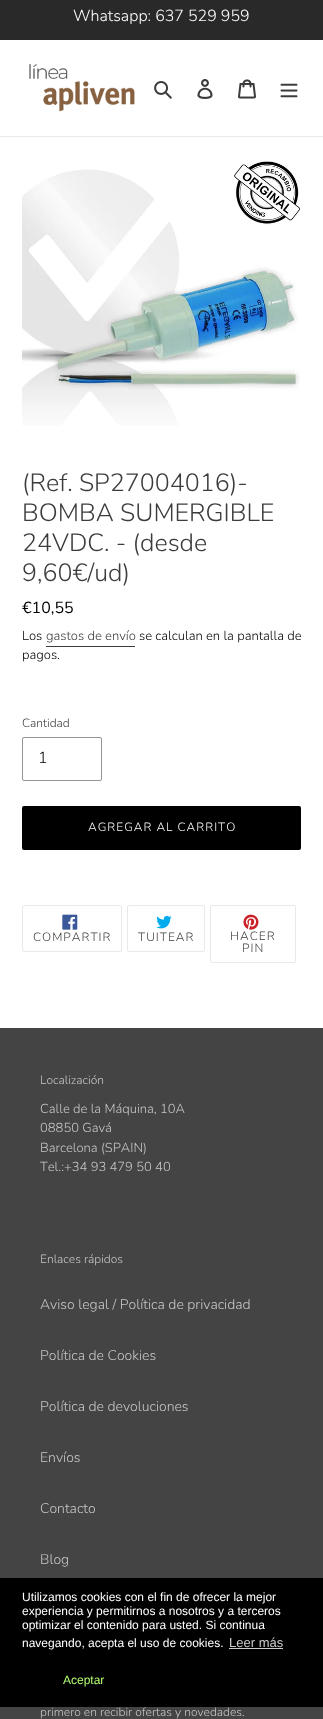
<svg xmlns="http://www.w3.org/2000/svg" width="323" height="1719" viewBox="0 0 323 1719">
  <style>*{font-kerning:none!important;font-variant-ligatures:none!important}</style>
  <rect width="100%" height="100%" fill="#ffffff"/>
  <rect x="0" y="0" width="323" height="40" fill="#292929"/>
  <text x="73" y="21" font-family="Nunito" font-size="16" font-weight="300" fill="#ffffff">Whatsapp: 637 529 959</text>
  <rect x="0" y="136" width="323" height="1" fill="#e8e9eb"/>
  <image x="29" y="63" width="106" height="49" href="img1.png"/>
  <image x="154" y="81" width="18" height="18" href="img2.png"/>
  <image x="197" y="79" width="16" height="20" href="img3.png"/>
  <image x="238" y="79" width="18" height="20" href="img4.png"/>
  <image x="280" y="83" width="18" height="15" href="img5.png"/>
  <image x="22" y="161" width="278" height="265" href="img6.png"/>
  <text x="22" y="491" font-family="Nunito" font-size="25" font-weight="300" fill="#3c3c3c">(Ref. SP27004016)-</text>
  <text x="22" y="521" font-family="Nunito" font-size="25" font-weight="300" fill="#3c3c3c">BOMBA SUMERGIBLE</text>
  <text x="22" y="551" font-family="Nunito" font-size="25" font-weight="300" fill="#3c3c3c">24VDC. - (desde</text>
  <text x="22" y="581" font-family="Nunito" font-size="25" font-weight="300" fill="#3c3c3c">9,60€/ud)</text>
  <text x="22" y="613" font-family="Nunito" font-size="16" fill="#000000">€10,55</text>
  <text x="22" y="640" font-family="Nunito" font-size="13" font-weight="300" fill="#000000">Los</text>
  <text x="46" y="640" font-family="Nunito" font-size="13" font-weight="300" fill="#3c3c3c">gastos de envío</text>
  <rect x="46" y="646" width="89" height="1" fill="#3c3c3c"/>
  <text x="139" y="640" font-family="Nunito" font-size="13" font-weight="300" fill="#000000">se calculan en la pantalla de</text>
  <text x="22" y="659" font-family="Nunito" font-size="13" font-weight="300" fill="#000000">pagos.</text>
  <text x="22" y="727" font-family="Nunito" font-size="12" font-weight="300" fill="#3c3c3c">Cantidad</text>
  <rect x="22.5" y="737.5" width="79" height="43" rx="1.5" fill="none" stroke="#949494"/>
  <text x="38" y="763" font-family="Nunito" font-size="16" font-weight="300" fill="#000000">1</text>
  <rect x="22" y="806" width="279" height="44" rx="2" fill="#000000"/>
  <text x="88" y="831" font-family="Nunito" font-size="12" font-weight="300" letter-spacing="1" fill="#ffffff">AGREGAR AL CARRITO</text>
  <rect x="22.5" y="905.5" width="99" height="46" rx="1.5" fill="none" stroke="#e8e9eb"/>
  <image x="62" y="914" width="16" height="16" href="img7.png"/>
  <text x="33" y="941" font-family="Nunito" font-size="12" font-weight="300" letter-spacing="1" fill="#3c3c3c">COMPARTIR</text>
  <rect x="127.5" y="905.5" width="77" height="46" rx="1.5" fill="none" stroke="#e8e9eb"/>
  <image x="156" y="915" width="16" height="14" href="img8.png"/>
  <text x="138" y="941" font-family="Nunito" font-size="12" font-weight="300" letter-spacing="1" fill="#3c3c3c">TUITEAR</text>
  <rect x="210.5" y="905.5" width="85" height="57" rx="1.5" fill="none" stroke="#e8e9eb"/>
  <image x="243" y="914" width="16" height="16" href="img9.png"/>
  <text x="230" y="940" font-family="Nunito" font-size="12" font-weight="300" letter-spacing="1" fill="#3c3c3c">HACER</text>
  <text x="242" y="952" font-family="Nunito" font-size="12" font-weight="300" letter-spacing="1" fill="#3c3c3c">PIN</text>
  <rect x="0" y="1028" width="323" height="691" fill="#444444"/>
  <text x="40" y="1084" font-family="Nunito" font-size="12" font-weight="300" fill="#c6c6c7">Localización</text>
  <text x="40" y="1113" font-family="Nunito" font-size="13" font-weight="300" fill="#c6c6c7">Calle de la Máquina, 10A </text>
  <text x="40" y="1132" font-family="Nunito" font-size="13" font-weight="300" fill="#c6c6c7">08850 Gavá </text>
  <text x="40" y="1152" font-family="Nunito" font-size="13" font-weight="300" fill="#c6c6c7">Barcelona (SPAIN)</text>
  <text x="40" y="1171" font-family="Nunito" font-size="13" font-weight="300" fill="#c6c6c7">Tel.:+34 93 479 50 40</text>
  <text x="40" y="1263" font-family="Nunito" font-size="12" font-weight="300" fill="#c6c6c7">Enlaces rápidos</text>
  <text x="40" y="1309" font-family="Nunito" font-size="14" font-weight="300" fill="#c6c6c7">Aviso legal / Política de privacidad</text>
  <text x="40" y="1360" font-family="Nunito" font-size="14" font-weight="300" fill="#c6c6c7">Política de Cookies</text>
  <text x="40" y="1411" font-family="Nunito" font-size="14" font-weight="300" fill="#c6c6c7">Política de devoluciones</text>
  <text x="40" y="1462" font-family="Nunito" font-size="14" font-weight="300" fill="#c6c6c7">Envíos</text>
  <text x="40" y="1513" font-family="Nunito" font-size="14" font-weight="300" fill="#c6c6c7">Contacto</text>
  <text x="40" y="1564" font-family="Nunito" font-size="14" font-weight="300" fill="#c6c6c7">Blog</text>
  <text x="40" y="1716" font-family="Nunito" font-size="12" font-weight="300" fill="#c6c6c7">primero en recibir ofertas y novedades.</text>
  <rect x="0" y="1578" width="323" height="129" fill="#000000"/>
  <text x="22" y="1601" font-family="Liberation Sans" font-size="12" fill="#ffffff">Utilizamos cookies con el fin de ofrecer la mejor</text>
  <text x="22" y="1615" font-family="Liberation Sans" font-size="12" fill="#ffffff">experiencia y permitirnos a nosotros y a terceros</text>
  <text x="22" y="1629" font-family="Liberation Sans" font-size="12" fill="#ffffff">optimizar el contenido para usted. Si continua</text>
  <text x="22" y="1647" font-family="Liberation Sans" font-size="12" fill="#ffffff">navegando, acepta el uso de cookies.</text>
  <text x="229" y="1647" font-family="Liberation Sans" font-size="13" fill="#cccccc">Leer más</text>
  <rect x="229" y="1648" width="54" height="1" fill="#cccccc"/>
  <text x="63" y="1684" font-family="Liberation Sans" font-size="12" fill="#b0ff73">Aceptar</text>
</svg>
